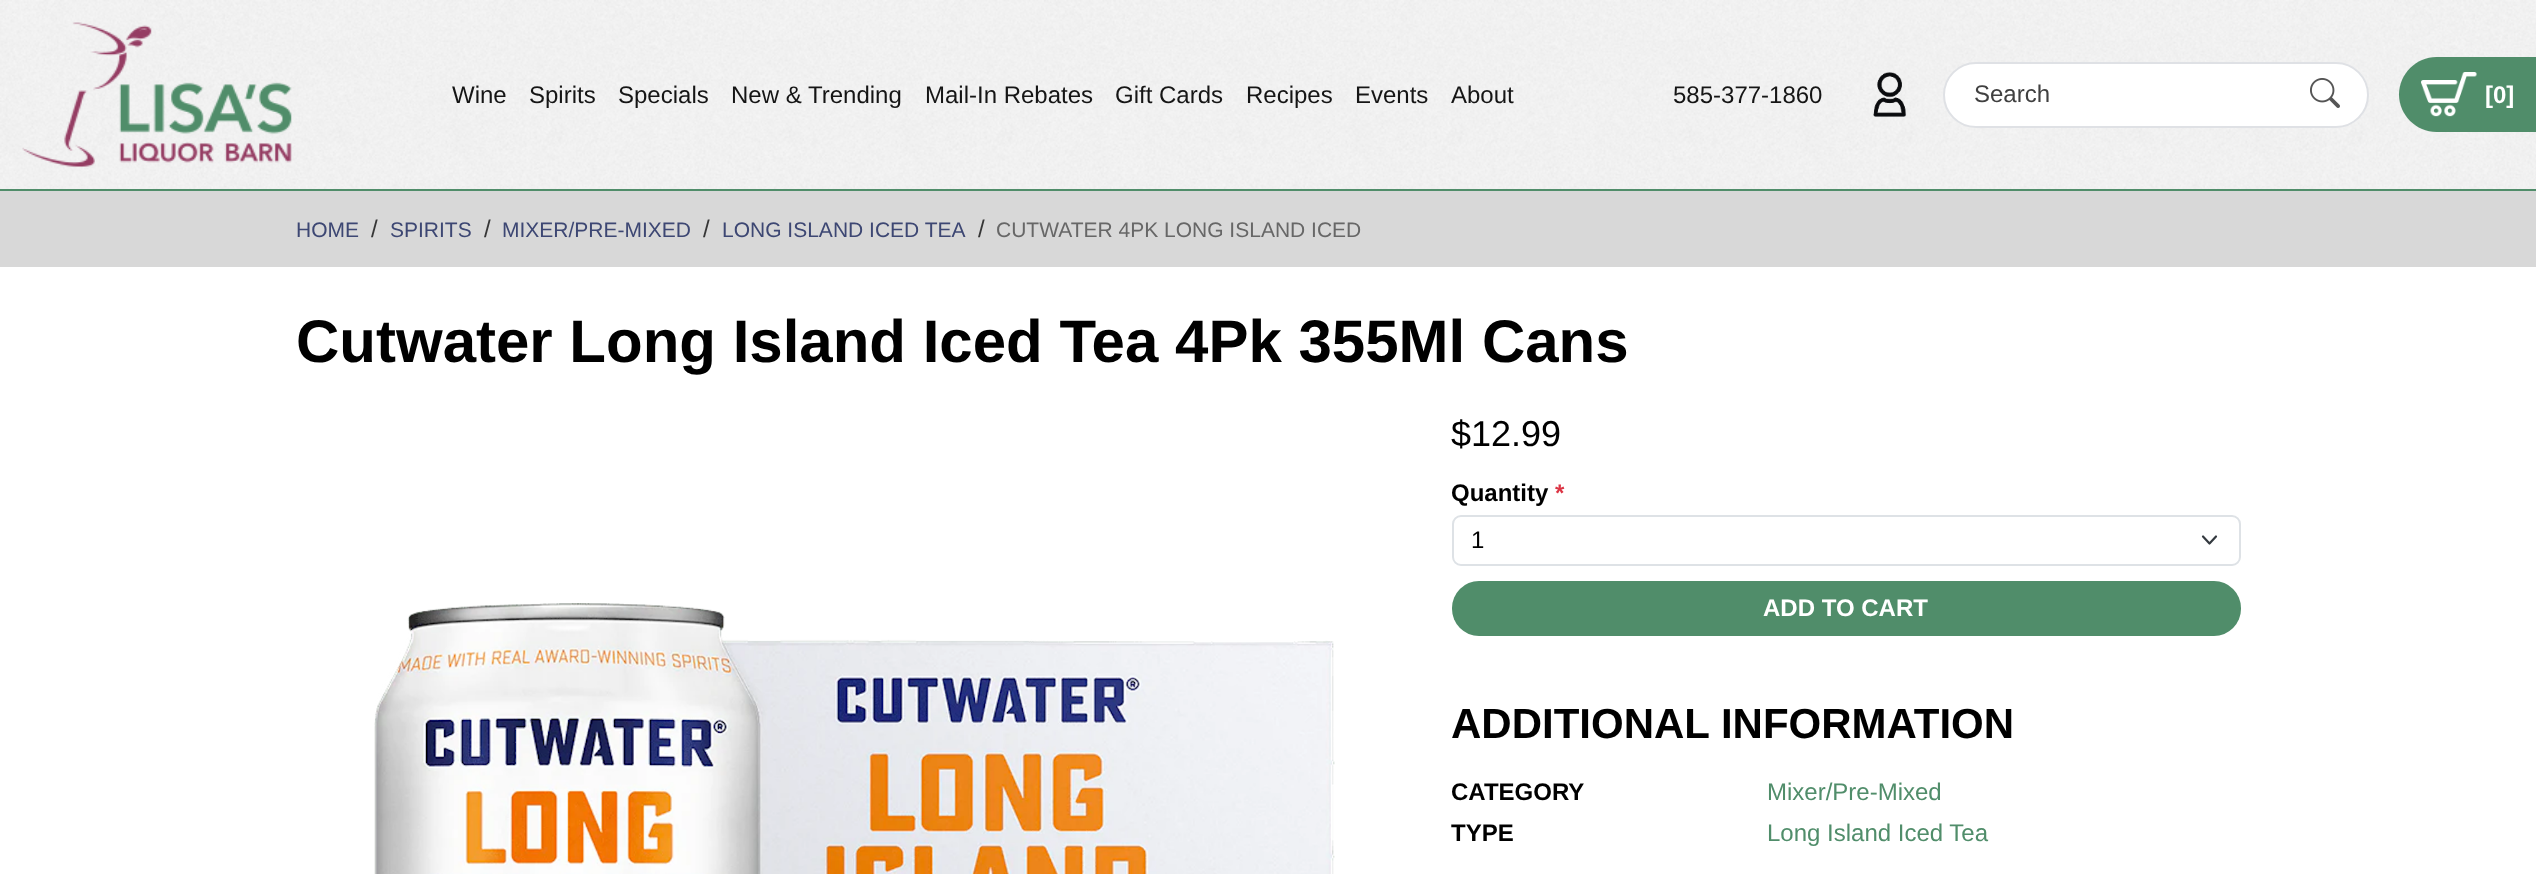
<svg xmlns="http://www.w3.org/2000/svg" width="2536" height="874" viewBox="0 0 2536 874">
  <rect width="100%" height="100%" fill="#ffffff"/>
  <image x="0" y="0" width="2536" height="189" href="img1.png"/>
  <rect x="0" y="189" width="2536" height="2" fill="#508d6a"/>
  <image x="22" y="22" width="270" height="145" href="img2.png"/>
  <text x="452" y="103" font-family="Liberation Sans" font-size="24" fill="#151515">Wine</text>
  <text x="529" y="103" font-family="Liberation Sans" font-size="24" fill="#151515">Spirits</text>
  <text x="618" y="103" font-family="Liberation Sans" font-size="24" fill="#151515">Specials</text>
  <text x="731" y="103" font-family="Liberation Sans" font-size="24" fill="#151515">New &amp; Trending</text>
  <text x="925" y="103" font-family="Liberation Sans" font-size="24" fill="#151515">Mail-In Rebates</text>
  <text x="1115" y="103" font-family="Liberation Sans" font-size="24" fill="#151515">Gift Cards</text>
  <text x="1246" y="103" font-family="Liberation Sans" font-size="24" fill="#151515">Recipes</text>
  <text x="1355" y="103" font-family="Liberation Sans" font-size="24" fill="#151515">Events</text>
  <text x="1451" y="103" font-family="Liberation Sans" font-size="24" fill="#151515">About</text>
  <text x="1673" y="103" font-family="Liberation Sans" font-size="24" fill="#151515">585-377-1860</text>
  <image x="1873" y="72" width="34" height="45" href="img3.png"/>
  <rect x="1944" y="63" width="424" height="64" rx="32" fill="#ffffff" stroke="#dfe1e5" stroke-width="2"/>
  <text x="1974" y="102" font-family="Liberation Sans" font-size="24" fill="#404040">Search</text>
  <image x="2310" y="78" width="30" height="30" href="img4.png"/>
  <path d="M2436.5 57H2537V132H2436.5C2416 132 2399 115 2399 94.5C2399 74 2416 57 2436.5 57Z" fill="#508d6a"/>
  <image x="2421" y="72" width="56" height="45" href="img5.png"/>
  <text x="2485" y="103" font-family="Liberation Sans" font-size="24" font-weight="bold" fill="#ffffff">[0]</text>
  <rect x="0" y="191" width="2536" height="76" fill="#d8d8d8"/>
  <text x="296" y="237" font-family="Liberation Sans" font-size="21" fill="#3d4773">HOME</text>
  <text x="371" y="237" font-family="Liberation Sans" font-size="24" fill="#363636">/</text>
  <text x="390" y="237" font-family="Liberation Sans" font-size="21" fill="#3d4773">SPIRITS</text>
  <text x="484" y="237" font-family="Liberation Sans" font-size="24" fill="#363636">/</text>
  <text x="502" y="237" font-family="Liberation Sans" font-size="21" fill="#3d4773">MIXER/PRE-MIXED</text>
  <text x="703" y="237" font-family="Liberation Sans" font-size="24" fill="#363636">/</text>
  <text x="722" y="237" font-family="Liberation Sans" font-size="21" fill="#3d4773">LONG ISLAND ICED TEA</text>
  <text x="978" y="237" font-family="Liberation Sans" font-size="24" fill="#363636">/</text>
  <text x="996" y="237" font-family="Liberation Sans" font-size="21" fill="#676767">CUTWATER 4PK LONG ISLAND ICED</text>
  <text x="296" y="362" font-family="Liberation Sans" font-size="60" font-weight="bold" fill="#000000">Cutwater Long Island Iced Tea 4Pk 355Ml Cans</text>
  <image x="374" y="603" width="961" height="271" href="img6.png"/>
  <text x="1451" y="446" font-family="Liberation Sans" font-size="36" fill="#000000">$12.99</text>
  <text x="1451" y="501" font-family="Liberation Sans" font-size="24" font-weight="bold" fill="#000000">Quantity</text>
  <text x="1555" y="501" font-family="Liberation Sans" font-size="24" font-weight="bold" fill="#dc3545">*</text>
  <path d="M2203 536.5L2209.5 543.5L2216 536.5" fill="none" stroke="#343a40" stroke-width="2.2" stroke-linecap="round" stroke-linejoin="round"/>
  <rect x="1453" y="516" width="787" height="49" rx="8" fill="none" stroke="#dee2e6" stroke-width="2"/>
  <text x="1471" y="548" font-family="Liberation Sans" font-size="24" fill="#000000">1</text>
  <rect x="1452" y="581" width="789" height="55" rx="27" fill="#508d6a"/>
  <text x="1763" y="616" font-family="Liberation Sans" font-size="24" font-weight="bold" fill="#ffffff">ADD TO CART</text>
  <text x="1451" y="738" font-family="Liberation Sans" font-size="42" font-weight="bold" fill="#000000">ADDITIONAL INFORMATION</text>
  <text x="1451" y="800" font-family="Liberation Sans" font-size="24" font-weight="bold" fill="#000000">CATEGORY</text>
  <text x="1767" y="800" font-family="Liberation Sans" font-size="24" fill="#508d6a">Mixer/Pre-Mixed</text>
  <text x="1451" y="841" font-family="Liberation Sans" font-size="24" font-weight="bold" fill="#000000">TYPE</text>
  <text x="1767" y="841" font-family="Liberation Sans" font-size="24" fill="#508d6a">Long Island Iced Tea</text>
</svg>
